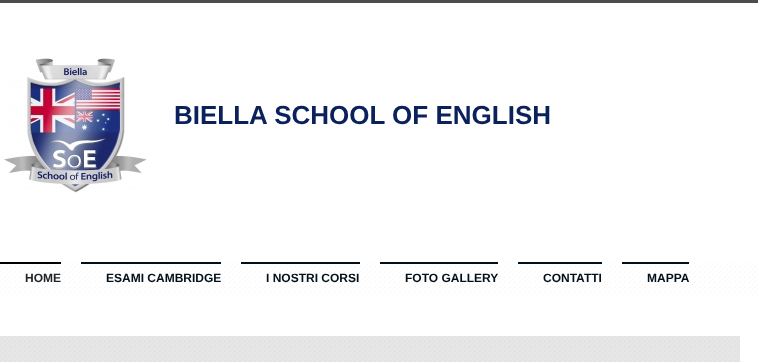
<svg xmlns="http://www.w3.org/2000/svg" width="758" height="362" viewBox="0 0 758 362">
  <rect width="100%" height="100%" fill="#ffffff"/>
  <rect x="0" y="0" width="758" height="3" fill="#4c4c4c"/>
  <image x="4" y="58" width="143" height="135" href="img1.png"/>
  <text x="174" y="124" font-family="Liberation Sans" font-size="26" font-weight="bold" fill="#0a215c">BIELLA SCHOOL OF ENGLISH</text>
  <image x="0" y="262" width="758" height="33" href="img2.png"/>
  <rect x="0" y="262" width="61" height="2" fill="#050002"/>
  <text x="25" y="282" font-family="Liberation Sans" font-size="12" font-weight="bold" fill="#202529">HOME</text>
  <rect x="81" y="262" width="140" height="2" fill="#03101a"/>
  <text x="106" y="282" font-family="Liberation Sans" font-size="12" font-weight="bold" fill="#03101a">ESAMI CAMBRIDGE</text>
  <rect x="241" y="262" width="119" height="2" fill="#03101a"/>
  <text x="266" y="282" font-family="Liberation Sans" font-size="12" font-weight="bold" fill="#03101a">I NOSTRI CORSI</text>
  <rect x="380" y="262" width="118" height="2" fill="#03101a"/>
  <text x="405" y="282" font-family="Liberation Sans" font-size="12" font-weight="bold" fill="#03101a">FOTO GALLERY</text>
  <rect x="518" y="262" width="84" height="2" fill="#03101a"/>
  <text x="543" y="282" font-family="Liberation Sans" font-size="12" font-weight="bold" fill="#03101a">CONTATTI</text>
  <rect x="622" y="262" width="67" height="2" fill="#03101a"/>
  <text x="647" y="282" font-family="Liberation Sans" font-size="12" font-weight="bold" fill="#03101a">MAPPA</text>
  <rect x="0" y="336" width="740" height="26" fill="#e6e6e6"/>
  <image x="0" y="336" width="740" height="26" href="img3.png"/>
</svg>
